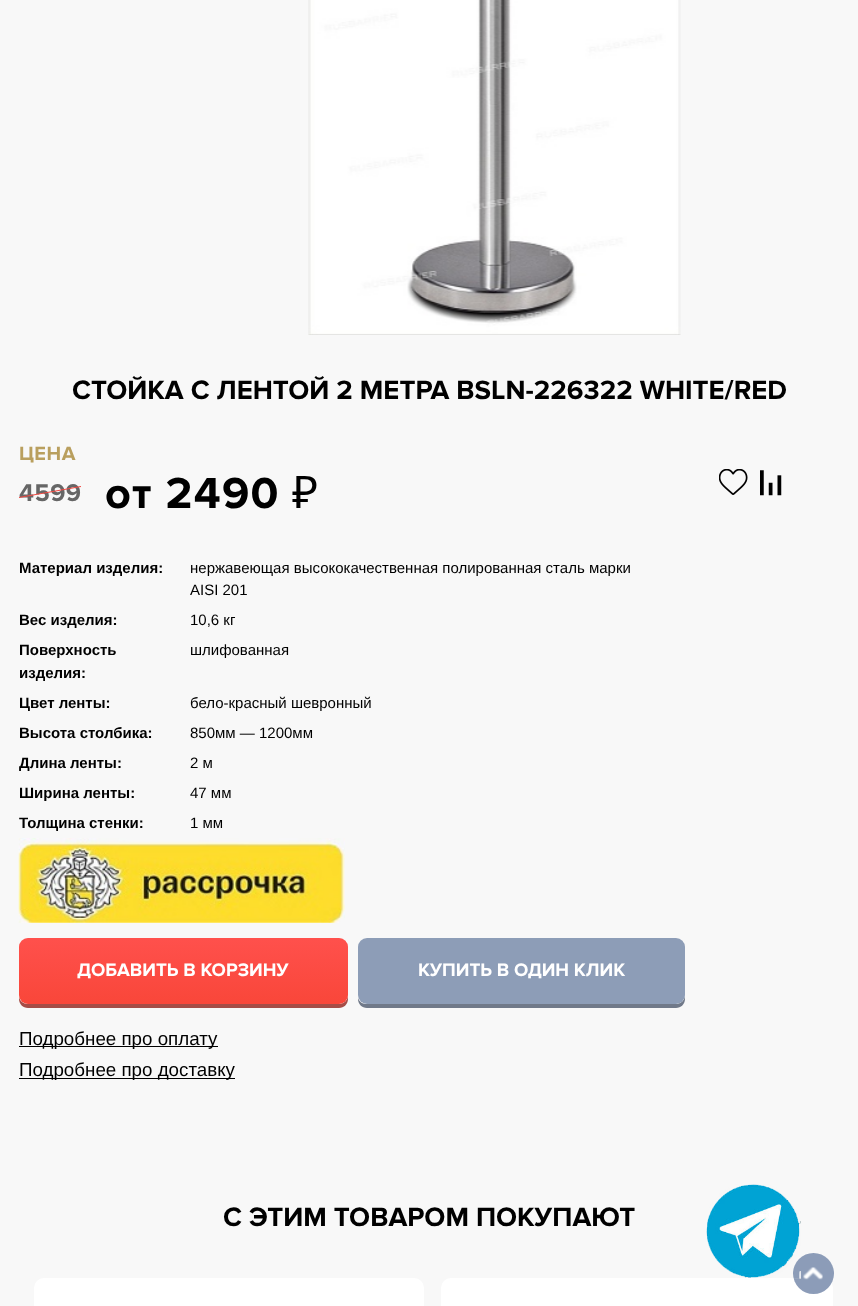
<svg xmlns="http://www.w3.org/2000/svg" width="858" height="1306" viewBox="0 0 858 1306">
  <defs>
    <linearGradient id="g1" gradientUnits="userSpaceOnUse" x1="183" y1="1004" x2="183" y2="938"><stop offset="0" stop-color="#ddc897" stop-opacity="0.18"/><stop offset="1" stop-color="#ffffff" stop-opacity="0.18"/></linearGradient>
  </defs>
  <rect width="100%" height="100%" fill="#f8f8f8"/>
  <image x="308" y="0" width="373" height="335" href="img1.png"/>
  <text x="72" y="399" font-family="Proxima Nova" font-size="27.5" font-weight="bold" fill="#000000">CТОЙКА С ЛЕНТОЙ 2 МЕТРА BSLN-226322 WHITE/RED</text>
  <text x="19" y="460" font-family="Proxima Nova" font-size="20" font-weight="bold" letter-spacing="0.5" fill="#b99f5e">ЦЕНА</text>
  <text x="19" y="501" font-family="Proxima Nova" font-size="25" font-weight="bold" letter-spacing="0.5" fill="#666666">4599</text>
  <path d="M19 497L81 486V487L19 498Z" fill="#f24841"/>
  <text x="105" y="508" font-family="Proxima Nova" font-size="45" font-weight="bold" letter-spacing="1.25" fill="#000000">от 2490</text>
  <text x="292" y="508" font-family="Noto Sans" font-size="45" letter-spacing="1.25" fill="#000000">₽</text>
  <image x="719" y="469" width="29" height="26" href="img2.png"/>
  <image x="760" y="470" width="22" height="26" href="img3.png"/>
  <text x="19" y="573" font-family="Liberation Sans" font-size="15" font-weight="bold" fill="#000000">Материал изделия:</text>
  <text x="190" y="573" font-family="Liberation Sans" font-size="15" fill="#000000">нержавеющая высококачественная полированная сталь марки</text>
  <text x="190" y="595" font-family="Liberation Sans" font-size="15" fill="#000000">AISI 201</text>
  <text x="19" y="625" font-family="Liberation Sans" font-size="15" font-weight="bold" fill="#000000">Вес изделия:</text>
  <text x="190" y="625" font-family="Liberation Sans" font-size="15" fill="#000000">10,6 кг</text>
  <text x="19" y="655" font-family="Liberation Sans" font-size="15" font-weight="bold" fill="#000000">Поверхность</text>
  <text x="19" y="678" font-family="Liberation Sans" font-size="15" font-weight="bold" fill="#000000">изделия:</text>
  <text x="190" y="655" font-family="Liberation Sans" font-size="15" fill="#000000">шлифованная</text>
  <text x="19" y="708" font-family="Liberation Sans" font-size="15" font-weight="bold" fill="#000000">Цвет ленты:</text>
  <text x="190" y="708" font-family="Liberation Sans" font-size="15" fill="#000000">бело-красный шевронный</text>
  <text x="19" y="738" font-family="Liberation Sans" font-size="15" font-weight="bold" fill="#000000">Высота столбика:</text>
  <text x="190" y="738" font-family="Liberation Sans" font-size="15" fill="#000000">850мм — 1200мм</text>
  <text x="19" y="768" font-family="Liberation Sans" font-size="15" font-weight="bold" fill="#000000">Длина ленты:</text>
  <text x="190" y="768" font-family="Liberation Sans" font-size="15" fill="#000000">2 м</text>
  <text x="19" y="798" font-family="Liberation Sans" font-size="15" font-weight="bold" fill="#000000">Ширина ленты:</text>
  <text x="190" y="798" font-family="Liberation Sans" font-size="15" fill="#000000">47 мм</text>
  <text x="19" y="828" font-family="Liberation Sans" font-size="15" font-weight="bold" fill="#000000">Толщина стенки:</text>
  <text x="190" y="828" font-family="Liberation Sans" font-size="15" fill="#000000">1 мм</text>
  <image x="18" y="838" width="327" height="85" href="img4.png"/>
  <path d="M19 997V999C19 1004 23 1008 28 1008H339C344 1008 348 1004 348 999V950V947V995C348 1000 344 1004 339 1004H28C23 1004 20 1001 19 997Z" fill="#a64c46"/>
  <rect x="19" y="938" width="329" height="66" rx="9" fill="#ff2a25"/>
  <rect x="19" y="938" width="329" height="66" rx="9" fill="url(#g1)"/>
  <text x="77" y="976" font-family="Proxima Nova" font-size="18.75" font-weight="bold" fill="#ffffff">ДОБАВИТЬ В КОРЗИНУ</text>
  <path d="M358 998V999C358 1004 362 1008 367 1008H676C681 1008 685 1004 685 999V995C685 1000 681 1004 676 1004H366C362 1004 359 1001 358 998Z" fill="#707989"/>
  <rect x="358" y="938" width="327" height="66" rx="9" fill="#8d9db7"/>
  <text x="418" y="976" font-family="Proxima Nova" font-size="18.75" font-weight="bold" fill="#ffffff">КУПИТЬ В ОДИН КЛИК</text>
  <rect x="19" y="1046" width="199" height="1" fill="#000000"/>
  <text x="19" y="1045" font-family="Liberation Sans" font-size="18.75" fill="#000000">Подробнее про оплату</text>
  <rect x="19" y="1078" width="216" height="1" fill="#000000"/>
  <text x="19" y="1076" font-family="Liberation Sans" font-size="18.75" fill="#000000">Подробнее про доставку</text>
  <text x="223" y="1226" font-family="Proxima Nova" font-size="27.5" font-weight="bold" fill="#000000">С ЭТИМ ТОВАРОМ ПОКУПАЮТ</text>
  <rect x="34" y="1278" width="390" height="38" rx="10" fill="#ffffff"/>
  <rect x="441" y="1278" width="392" height="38" rx="10" fill="#ffffff"/>
  <circle cx="813.5" cy="1273.5" r="20.5" fill="#8c9cb8"/>
  <image x="706" y="1184" width="95" height="95" href="img5.png"/>
  <image x="803" y="1267" width="20" height="13" href="img6.png"/>
</svg>
